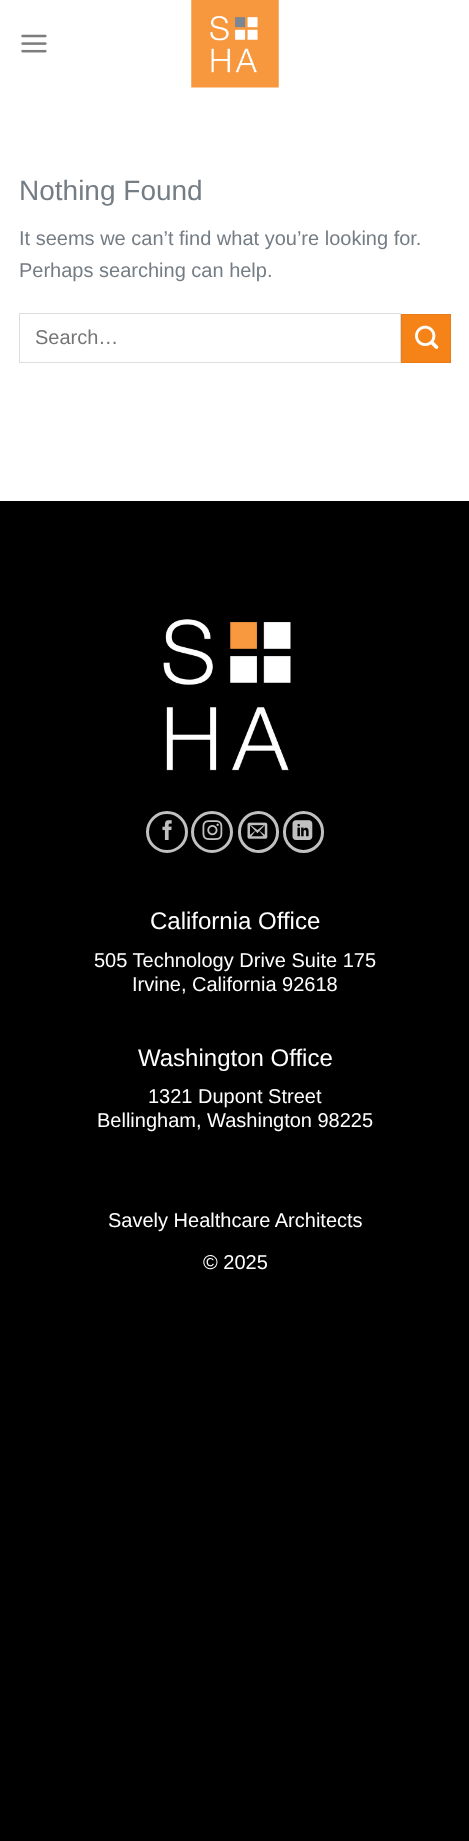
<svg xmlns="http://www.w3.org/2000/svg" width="469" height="1841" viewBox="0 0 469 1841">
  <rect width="100%" height="100%" fill="#000000"/>
  <rect x="0" y="0" width="469" height="501" fill="#ffffff"/>
  <image x="21" y="34" width="26" height="19" href="img1.png"/>
  <image x="191" y="0" width="88" height="88" href="img2.png"/>
  <text x="19" y="200" font-family="Liberation Sans" font-size="28" fill="#747c84">Nothing Found</text>
  <text x="19" y="245" font-family="Liberation Sans" font-size="20" fill="#747c84">It seems we can’t find what you’re looking for.</text>
  <text x="19" y="277" font-family="Liberation Sans" font-size="20" fill="#747c84">Perhaps searching can help.</text>
  <rect x="19.5" y="313.5" width="381" height="49" fill="none" stroke="#dddddd"/>
  <text x="35" y="344" font-family="Liberation Sans" font-size="20" fill="#757575">Search…</text>
  <rect x="401.5" y="314.5" width="49" height="48" fill="#f58318" stroke="#e97c17"/>
  <image x="415" y="325" width="24" height="24" href="img3.png"/>
  <image x="163" y="619" width="128" height="152" href="img4.png"/>
  <circle cx="167" cy="832" r="19.5" fill="none" stroke="#c0c0c0" stroke-width="3"/>
  <image x="162" y="820" width="10" height="20" href="img5.png"/>
  <circle cx="212" cy="832" r="19.5" fill="none" stroke="#c0c0c0" stroke-width="3"/>
  <image x="202" y="820" width="21" height="20" href="img6.png"/>
  <rect x="239.5" y="812.5" width="38" height="39" rx="19" fill="none" stroke="#c0c0c0" stroke-width="3"/>
  <image x="247" y="822" width="21" height="17" href="img7.png"/>
  <rect x="284.5" y="812.5" width="38" height="39" rx="19" fill="none" stroke="#c0c0c0" stroke-width="3"/>
  <image x="292" y="820" width="21" height="20" href="img8.png"/>
  <text x="150" y="929" font-family="Liberation Sans" font-size="24" fill="#ffffff">California Office</text>
  <text x="94" y="967" font-family="Liberation Sans" font-size="20" fill="#ffffff">505 Technology Drive Suite 175</text>
  <text x="132" y="991" font-family="Liberation Sans" font-size="20" fill="#ffffff">Irvine, California 92618</text>
  <text x="138" y="1066" font-family="Liberation Sans" font-size="24" fill="#ffffff">Washington Office</text>
  <text x="148" y="1103" font-family="Liberation Sans" font-size="20" fill="#ffffff">1321 Dupont Street</text>
  <text x="97" y="1127" font-family="Liberation Sans" font-size="20" fill="#ffffff">Bellingham, Washington 98225</text>
  <text x="108" y="1227" font-family="Liberation Sans" font-size="20" fill="#ffffff">Savely Healthcare Architects</text>
  <text x="203" y="1269" font-family="Liberation Sans" font-size="20" fill="#ffffff">© 2025</text>
</svg>
